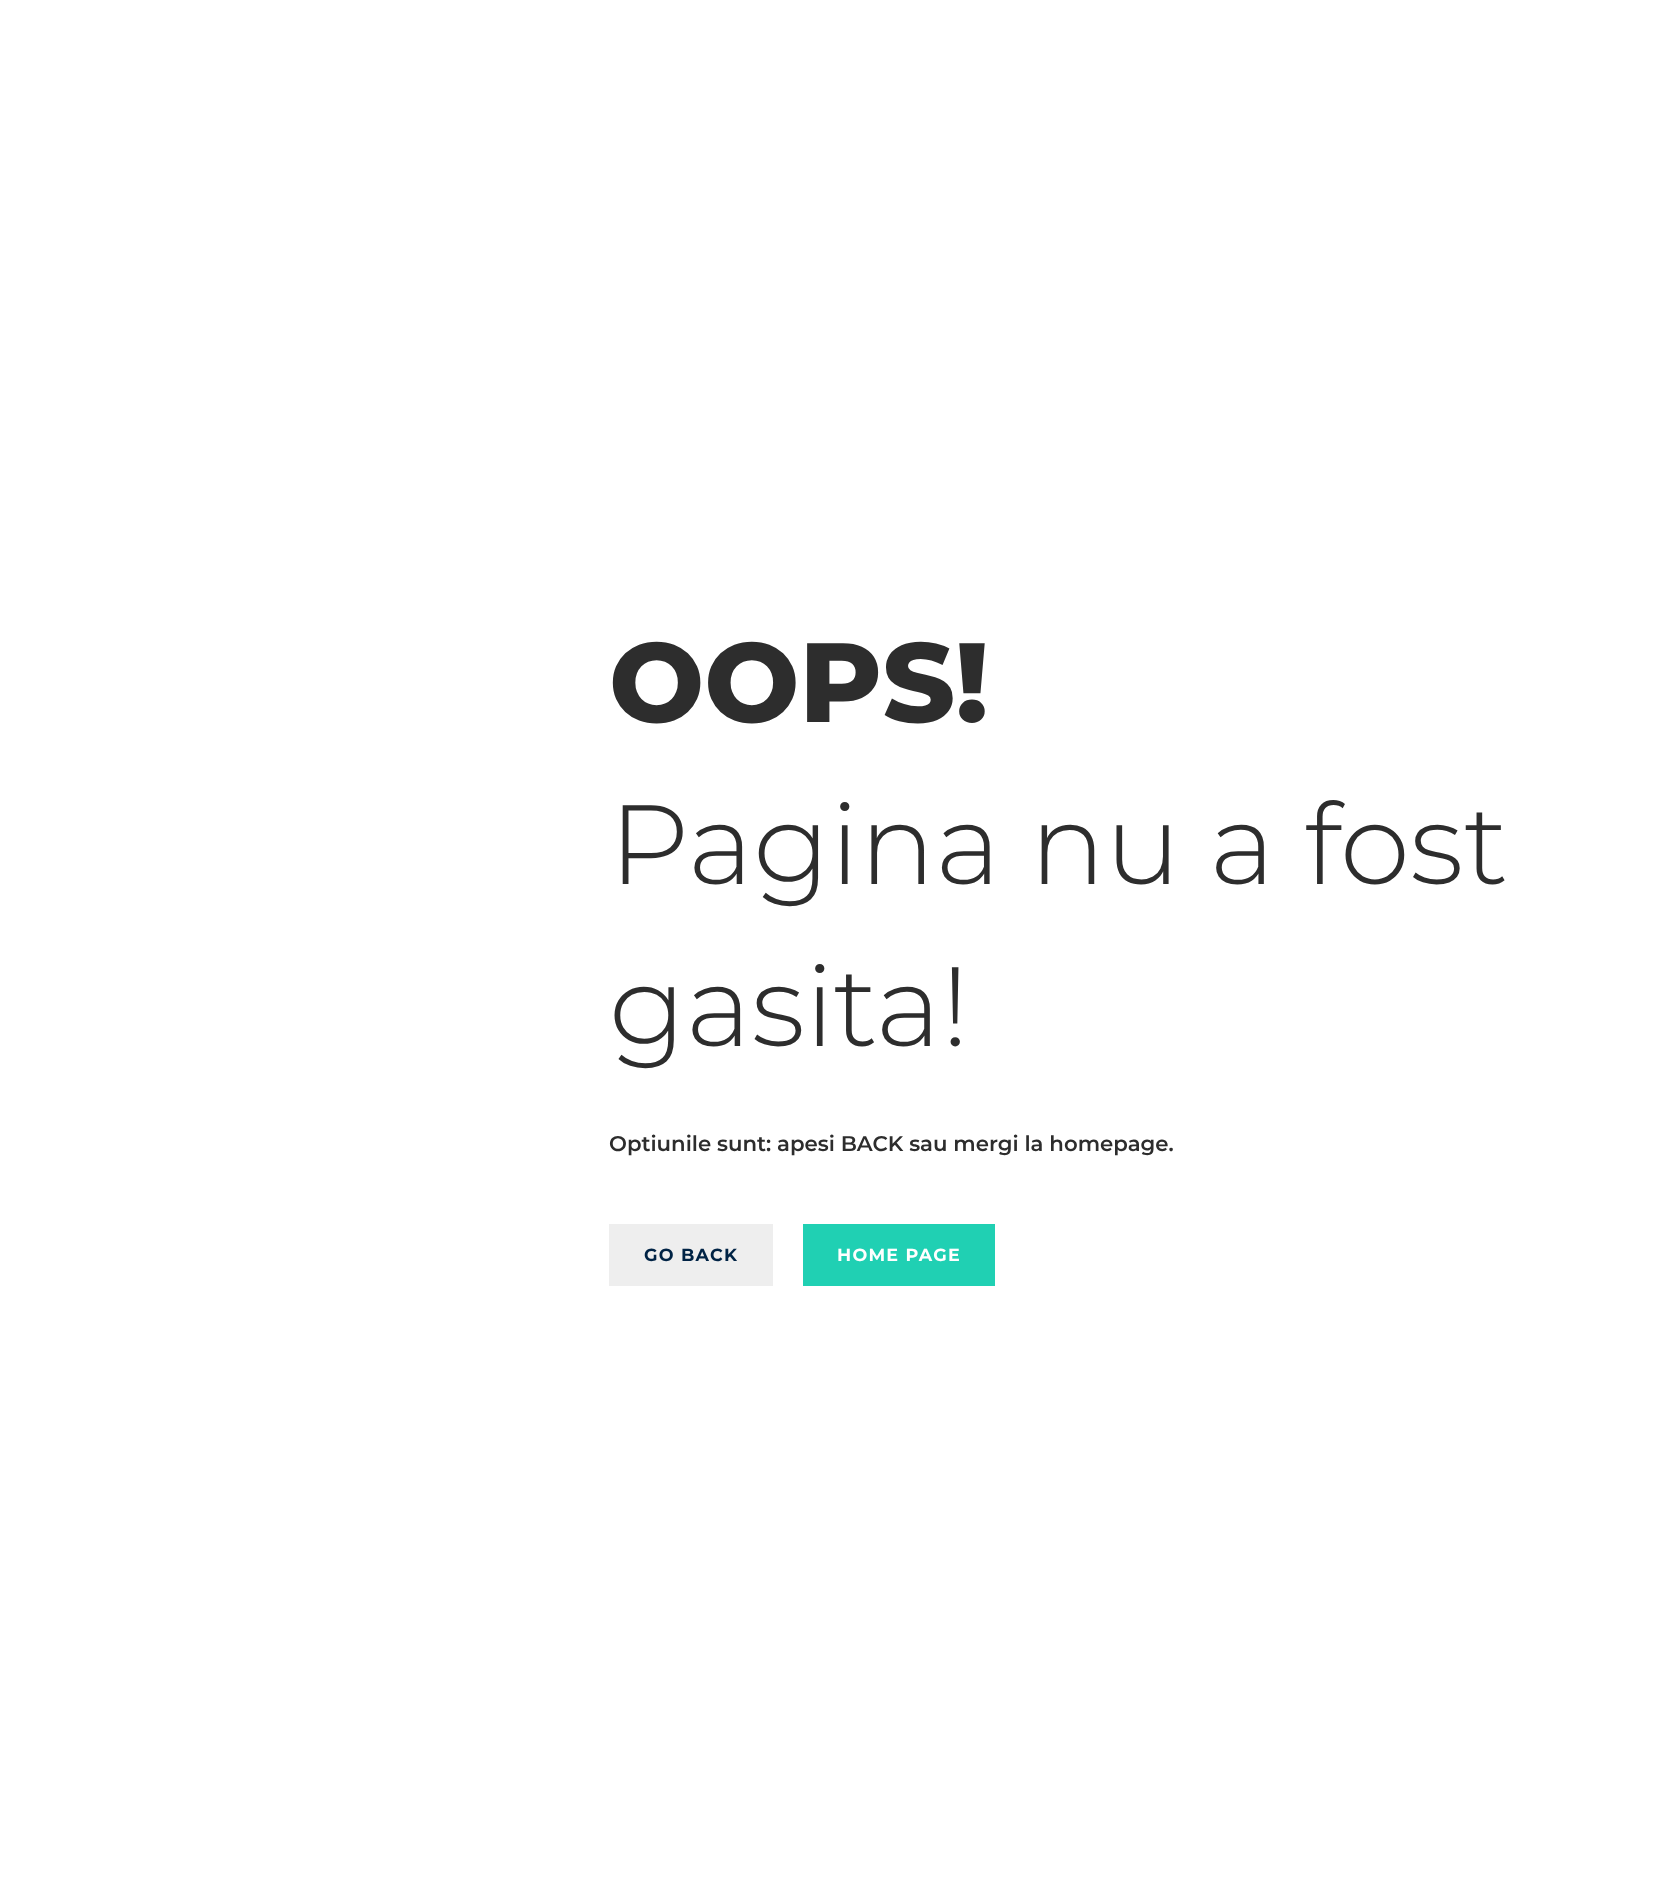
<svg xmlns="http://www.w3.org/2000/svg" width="1679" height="1900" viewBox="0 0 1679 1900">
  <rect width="100%" height="100%" fill="#ffffff"/>
  <text x="609" y="722" font-family="Montserrat" font-size="112.5" font-weight="800" fill="#2d2d2d">OOPS!</text>
  <text x="609" y="884" font-family="Montserrat" font-size="112.5" font-weight="300" fill="#2d2d2d">Pagina nu a fost</text>
  <text x="609" y="1046" font-family="Montserrat" font-size="112.5" font-weight="300" fill="#2d2d2d">gasita!</text>
  <text x="609" y="1151" font-family="Montserrat" font-size="21.25" font-weight="600" fill="#2d2d2d">Optiunile sunt: apesi BACK sau mergi la homepage.</text>
  <rect x="609" y="1224" width="164" height="62" fill="#eeeeee"/>
  <text x="644" y="1261" font-family="Montserrat" font-size="17.5" font-weight="bold" letter-spacing="1.25" fill="#002345">GO BACK</text>
  <rect x="803" y="1224" width="192" height="62" fill="#20d0b3"/>
  <text x="837" y="1261" font-family="Montserrat" font-size="17.5" font-weight="bold" letter-spacing="1.25" fill="#ffffff">HOME PAGE</text>
</svg>
